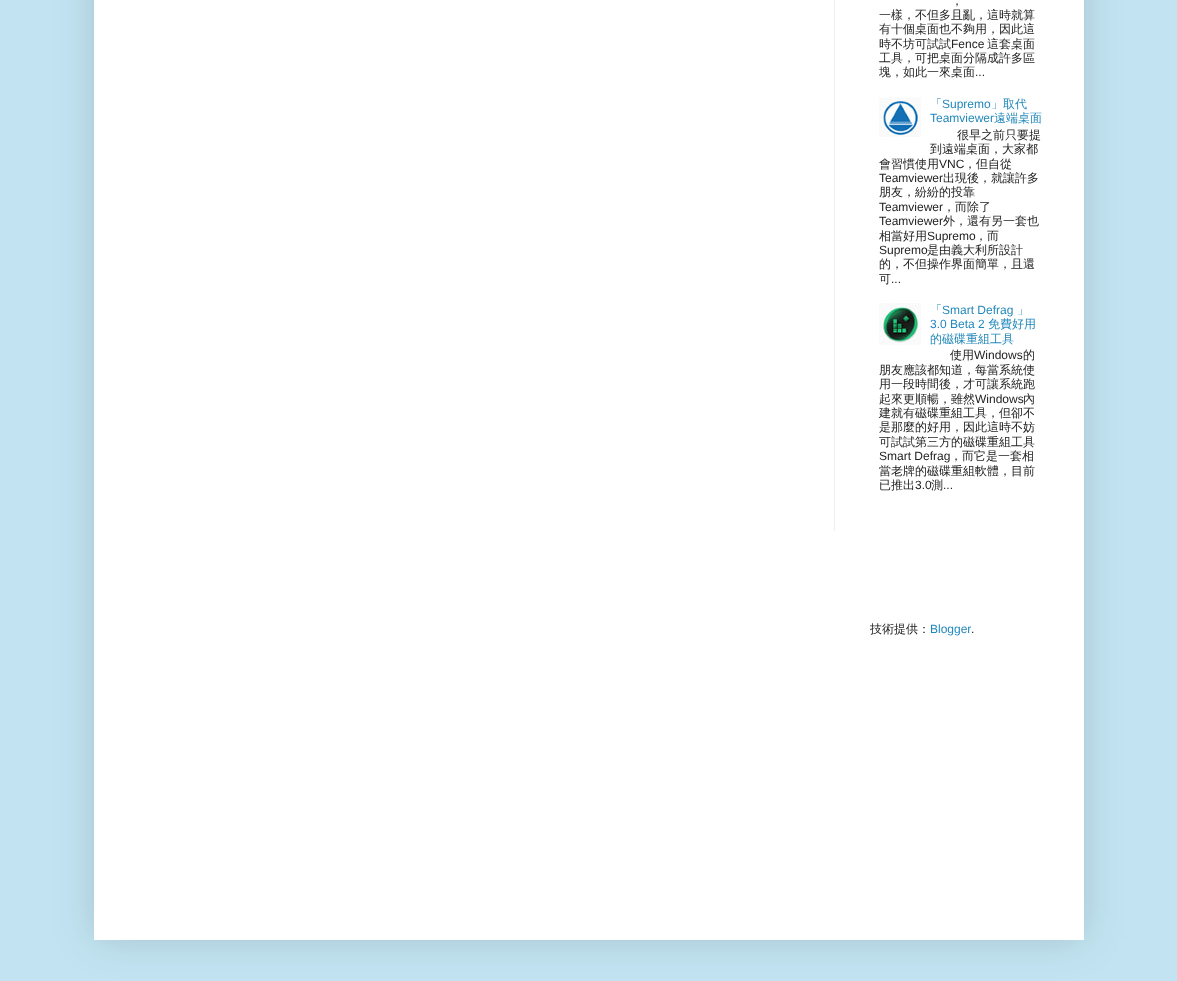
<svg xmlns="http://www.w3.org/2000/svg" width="1177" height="981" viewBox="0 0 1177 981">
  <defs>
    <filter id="blur1" x="-50%" y="-200%" width="200%" height="500%"><feGaussianBlur stdDeviation="20"/></filter>
  </defs>
  <rect width="100%" height="100%" fill="#c2e4f2"/>
  <rect x="94" y="-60" width="990" height="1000" fill="#000000" fill-opacity="0.15" filter="url(#blur1)"/>
  <rect x="94" y="0" width="990" height="940" fill="#ffffff"/>
  <rect x="834" y="0" width="1" height="531" fill="#eeeeee"/>
  <text x="951" y="5" font-family="WenQuanYi Zen Hei" font-size="12" font-weight="500" fill="#222222">，</text>
  <text x="879" y="19" font-family="WenQuanYi Zen Hei" font-size="12" font-weight="500" fill="#222222">一樣，不但多且亂，這時就算</text>
  <text x="879" y="33" font-family="WenQuanYi Zen Hei" font-size="12" font-weight="500" fill="#222222">有十個桌面也不夠用，因此這</text>
  <text x="879" y="48" font-family="WenQuanYi Zen Hei" font-size="12" font-weight="500" fill="#222222">時不坊可試試</text>
  <text x="951" y="48" font-family="Liberation Sans" font-size="12" fill="#222222">Fence</text>
  <text x="987" y="48" font-family="WenQuanYi Zen Hei" font-size="12" font-weight="500" fill="#222222">這套桌面</text>
  <text x="879" y="62" font-family="WenQuanYi Zen Hei" font-size="12" font-weight="500" fill="#222222">工具，可把桌面分隔成許多區</text>
  <text x="879" y="76" font-family="WenQuanYi Zen Hei" font-size="12" font-weight="500" fill="#222222">塊，如此一來桌面</text>
  <text x="975" y="76" font-family="Liberation Sans" font-size="12" fill="#222222">...</text>
  <image x="879" y="97" width="42" height="40" href="img1.png"/>
  <text x="930" y="108" font-family="WenQuanYi Zen Hei" font-size="12" font-weight="500" fill="#2288bb">「</text>
  <text x="942" y="108" font-family="Liberation Sans" font-size="12" fill="#2288bb">Supremo</text>
  <text x="991" y="108" font-family="WenQuanYi Zen Hei" font-size="12" font-weight="500" fill="#2288bb">」取代</text>
  <text x="930" y="122" font-family="Liberation Sans" font-size="12" fill="#2288bb">Teamviewer</text>
  <text x="994" y="122" font-family="WenQuanYi Zen Hei" font-size="12" font-weight="500" fill="#2288bb">遠端桌面</text>
  <text x="957" y="139" font-family="WenQuanYi Zen Hei" font-size="12" font-weight="500" fill="#222222">很早之前只要提</text>
  <text x="930" y="153" font-family="WenQuanYi Zen Hei" font-size="12" font-weight="500" fill="#222222">到遠端桌面，大家都</text>
  <text x="879" y="168" font-family="WenQuanYi Zen Hei" font-size="12" font-weight="500" fill="#222222">會習慣使用</text>
  <text x="939" y="168" font-family="Liberation Sans" font-size="12" fill="#222222">VNC</text>
  <text x="964" y="168" font-family="WenQuanYi Zen Hei" font-size="12" font-weight="500" fill="#222222">，但自從</text>
  <text x="879" y="182" font-family="Liberation Sans" font-size="12" fill="#222222">Teamviewer</text>
  <text x="943" y="182" font-family="WenQuanYi Zen Hei" font-size="12" font-weight="500" fill="#222222">出現後，就讓許多</text>
  <text x="879" y="196" font-family="WenQuanYi Zen Hei" font-size="12" font-weight="500" fill="#222222">朋友，紛紛的投靠</text>
  <text x="879" y="211" font-family="Liberation Sans" font-size="12" fill="#222222">Teamviewer</text>
  <text x="943" y="211" font-family="WenQuanYi Zen Hei" font-size="12" font-weight="500" fill="#222222">，而除了</text>
  <text x="879" y="225" font-family="Liberation Sans" font-size="12" fill="#222222">Teamviewer</text>
  <text x="943" y="225" font-family="WenQuanYi Zen Hei" font-size="12" font-weight="500" fill="#222222">外，還有另一套也</text>
  <text x="879" y="240" font-family="WenQuanYi Zen Hei" font-size="12" font-weight="500" fill="#222222">相當好用</text>
  <text x="927" y="240" font-family="Liberation Sans" font-size="12" fill="#222222">Supremo</text>
  <text x="975" y="240" font-family="WenQuanYi Zen Hei" font-size="12" font-weight="500" fill="#222222">，而</text>
  <text x="879" y="254" font-family="Liberation Sans" font-size="12" fill="#222222">Supremo</text>
  <text x="927" y="254" font-family="WenQuanYi Zen Hei" font-size="12" font-weight="500" fill="#222222">是由義大利所設計</text>
  <text x="879" y="268" font-family="WenQuanYi Zen Hei" font-size="12" font-weight="500" fill="#222222">的，不但操作界面簡單，且還</text>
  <text x="879" y="283" font-family="WenQuanYi Zen Hei" font-size="12" font-weight="500" fill="#222222">可</text>
  <text x="891" y="283" font-family="Liberation Sans" font-size="12" fill="#222222">...</text>
  <image x="879" y="303" width="42" height="42" href="img2.png"/>
  <text x="930" y="314" font-family="WenQuanYi Zen Hei" font-size="12" font-weight="500" fill="#2288bb">「</text>
  <text x="942" y="314" font-family="Liberation Sans" font-size="12" fill="#2288bb">Smart Defrag</text>
  <text x="1017" y="314" font-family="WenQuanYi Zen Hei" font-size="12" font-weight="500" fill="#2288bb">」</text>
  <text x="930" y="328" font-family="Liberation Sans" font-size="12" fill="#2288bb">3.0 Beta 2</text>
  <text x="988" y="328" font-family="WenQuanYi Zen Hei" font-size="12" font-weight="500" fill="#2288bb">免費好用</text>
  <text x="930" y="343" font-family="WenQuanYi Zen Hei" font-size="12" font-weight="500" fill="#2288bb">的磁碟重組工具</text>
  <text x="950" y="359" font-family="WenQuanYi Zen Hei" font-size="12" font-weight="500" fill="#222222">使用</text>
  <text x="974" y="359" font-family="Liberation Sans" font-size="12" fill="#222222">Windows</text>
  <text x="1023" y="359" font-family="WenQuanYi Zen Hei" font-size="12" font-weight="500" fill="#222222">的</text>
  <text x="879" y="374" font-family="WenQuanYi Zen Hei" font-size="12" font-weight="500" fill="#222222">朋友應該都知道，每當系統使</text>
  <text x="879" y="388" font-family="WenQuanYi Zen Hei" font-size="12" font-weight="500" fill="#222222">用一段時間後，才可讓系統跑</text>
  <text x="879" y="403" font-family="WenQuanYi Zen Hei" font-size="12" font-weight="500" fill="#222222">起來更順暢，雖然</text>
  <text x="975" y="403" font-family="Liberation Sans" font-size="12" fill="#222222">Windows</text>
  <text x="1023" y="403" font-family="WenQuanYi Zen Hei" font-size="12" font-weight="500" fill="#222222">內</text>
  <text x="879" y="417" font-family="WenQuanYi Zen Hei" font-size="12" font-weight="500" fill="#222222">建就有磁碟重組工具，但卻不</text>
  <text x="879" y="431" font-family="WenQuanYi Zen Hei" font-size="12" font-weight="500" fill="#222222">是那麼的好用，因此這時不妨</text>
  <text x="879" y="446" font-family="WenQuanYi Zen Hei" font-size="12" font-weight="500" fill="#222222">可試試第三方的磁碟重組工具</text>
  <text x="879" y="460" font-family="Liberation Sans" font-size="12" fill="#222222">Smart Defrag</text>
  <text x="950" y="460" font-family="WenQuanYi Zen Hei" font-size="12" font-weight="500" fill="#222222">，而它是一套相</text>
  <text x="879" y="475" font-family="WenQuanYi Zen Hei" font-size="12" font-weight="500" fill="#222222">當老牌的磁碟重組軟體，目前</text>
  <text x="879" y="489" font-family="WenQuanYi Zen Hei" font-size="12" font-weight="500" fill="#222222">已推出</text>
  <text x="915" y="489" font-family="Liberation Sans" font-size="12" fill="#222222">3.0</text>
  <text x="931" y="489" font-family="WenQuanYi Zen Hei" font-size="12" font-weight="500" fill="#222222">測</text>
  <text x="943" y="489" font-family="Liberation Sans" font-size="12" fill="#222222">...</text>
  <text x="870" y="633" font-family="WenQuanYi Zen Hei" font-size="12" font-weight="500" fill="#222222">技術提供：</text>
  <text x="930" y="633" font-family="Liberation Sans" font-size="12" fill="#2288bb">Blogger</text>
  <text x="971" y="633" font-family="Liberation Sans" font-size="12" fill="#222222">.</text>
</svg>
